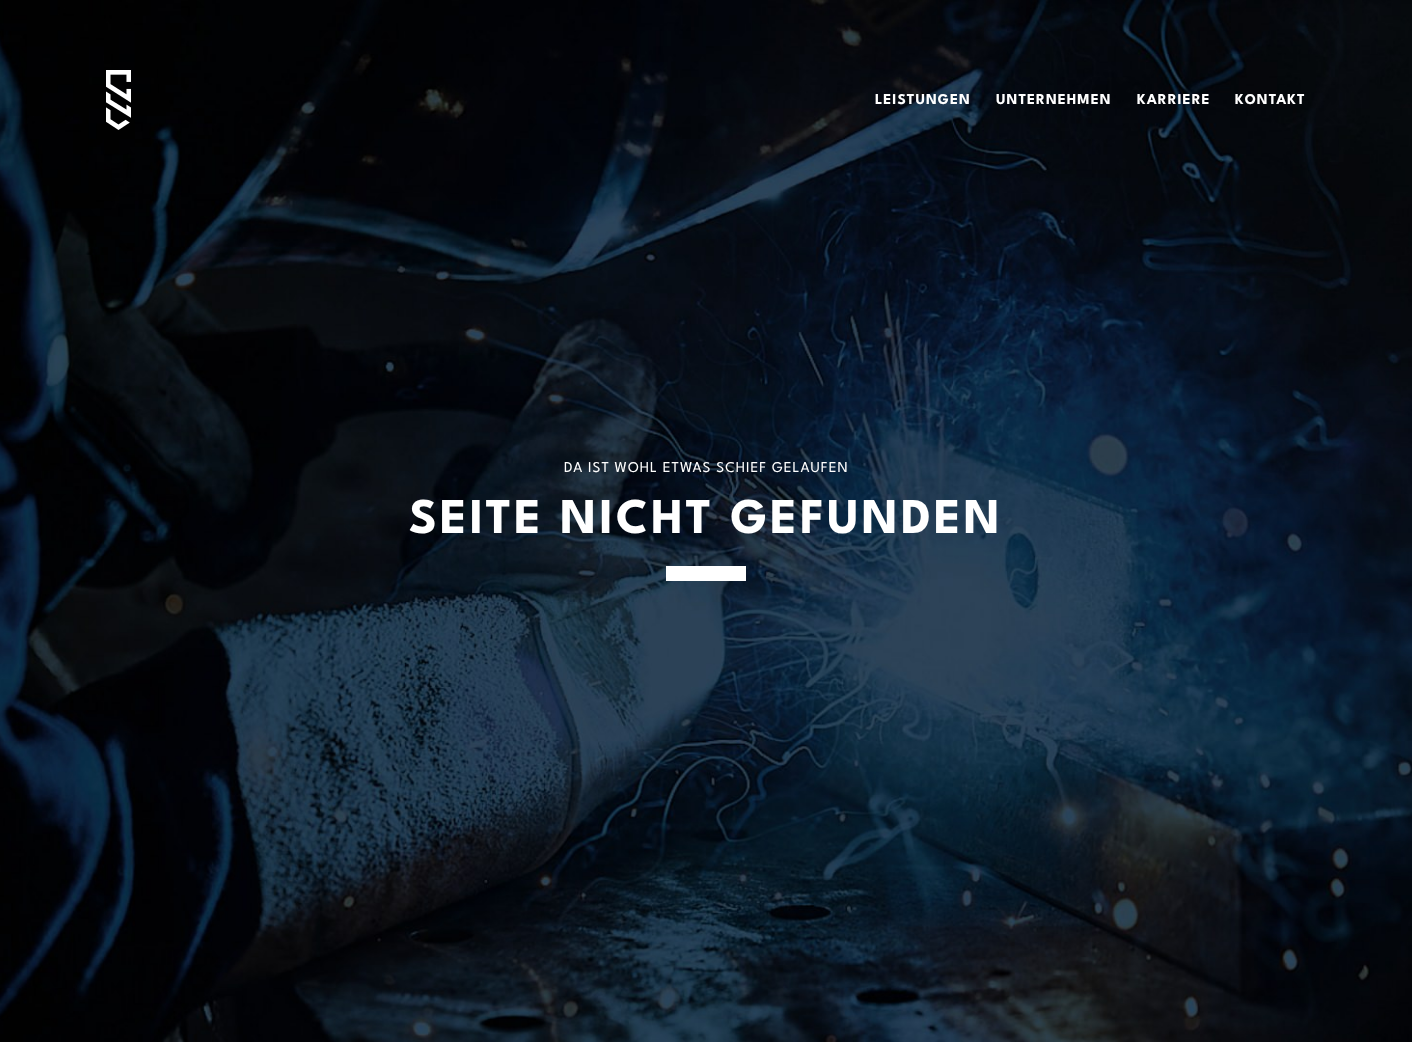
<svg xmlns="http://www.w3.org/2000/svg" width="1412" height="1042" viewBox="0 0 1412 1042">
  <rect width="100%" height="100%" fill="#ffffff"/>
  <image x="0" y="0" width="1412" height="1042" href="img2.png"/>
  <image x="106" y="70" width="25" height="60" href="img1.png"/>
  <text x="875" y="104" font-family="League Spartan" font-size="15" font-weight="bold" letter-spacing="1" fill="#ffffff">LEISTUNGEN</text>
  <text x="996" y="104" font-family="League Spartan" font-size="15" font-weight="bold" letter-spacing="1" fill="#ffffff">UNTERNEHMEN</text>
  <text x="1137" y="104" font-family="League Spartan" font-size="15" font-weight="bold" letter-spacing="1" fill="#ffffff">KARRIERE</text>
  <text x="1235" y="104" font-family="League Spartan" font-size="15" font-weight="bold" letter-spacing="1" fill="#ffffff">KONTAKT</text>
  <text x="564" y="472" font-family="League Spartan" font-size="15" letter-spacing="1" fill="#ffffff">DA IST WOHL ETWAS SCHIEF GELAUFEN</text>
  <text x="409" y="533" font-family="League Spartan" font-size="50" font-weight="bold" letter-spacing="3" fill="#ffffff">SEITE NICHT GEFUNDEN</text>
  <rect x="666" y="566" width="80" height="15" fill="#ffffff"/>
</svg>
